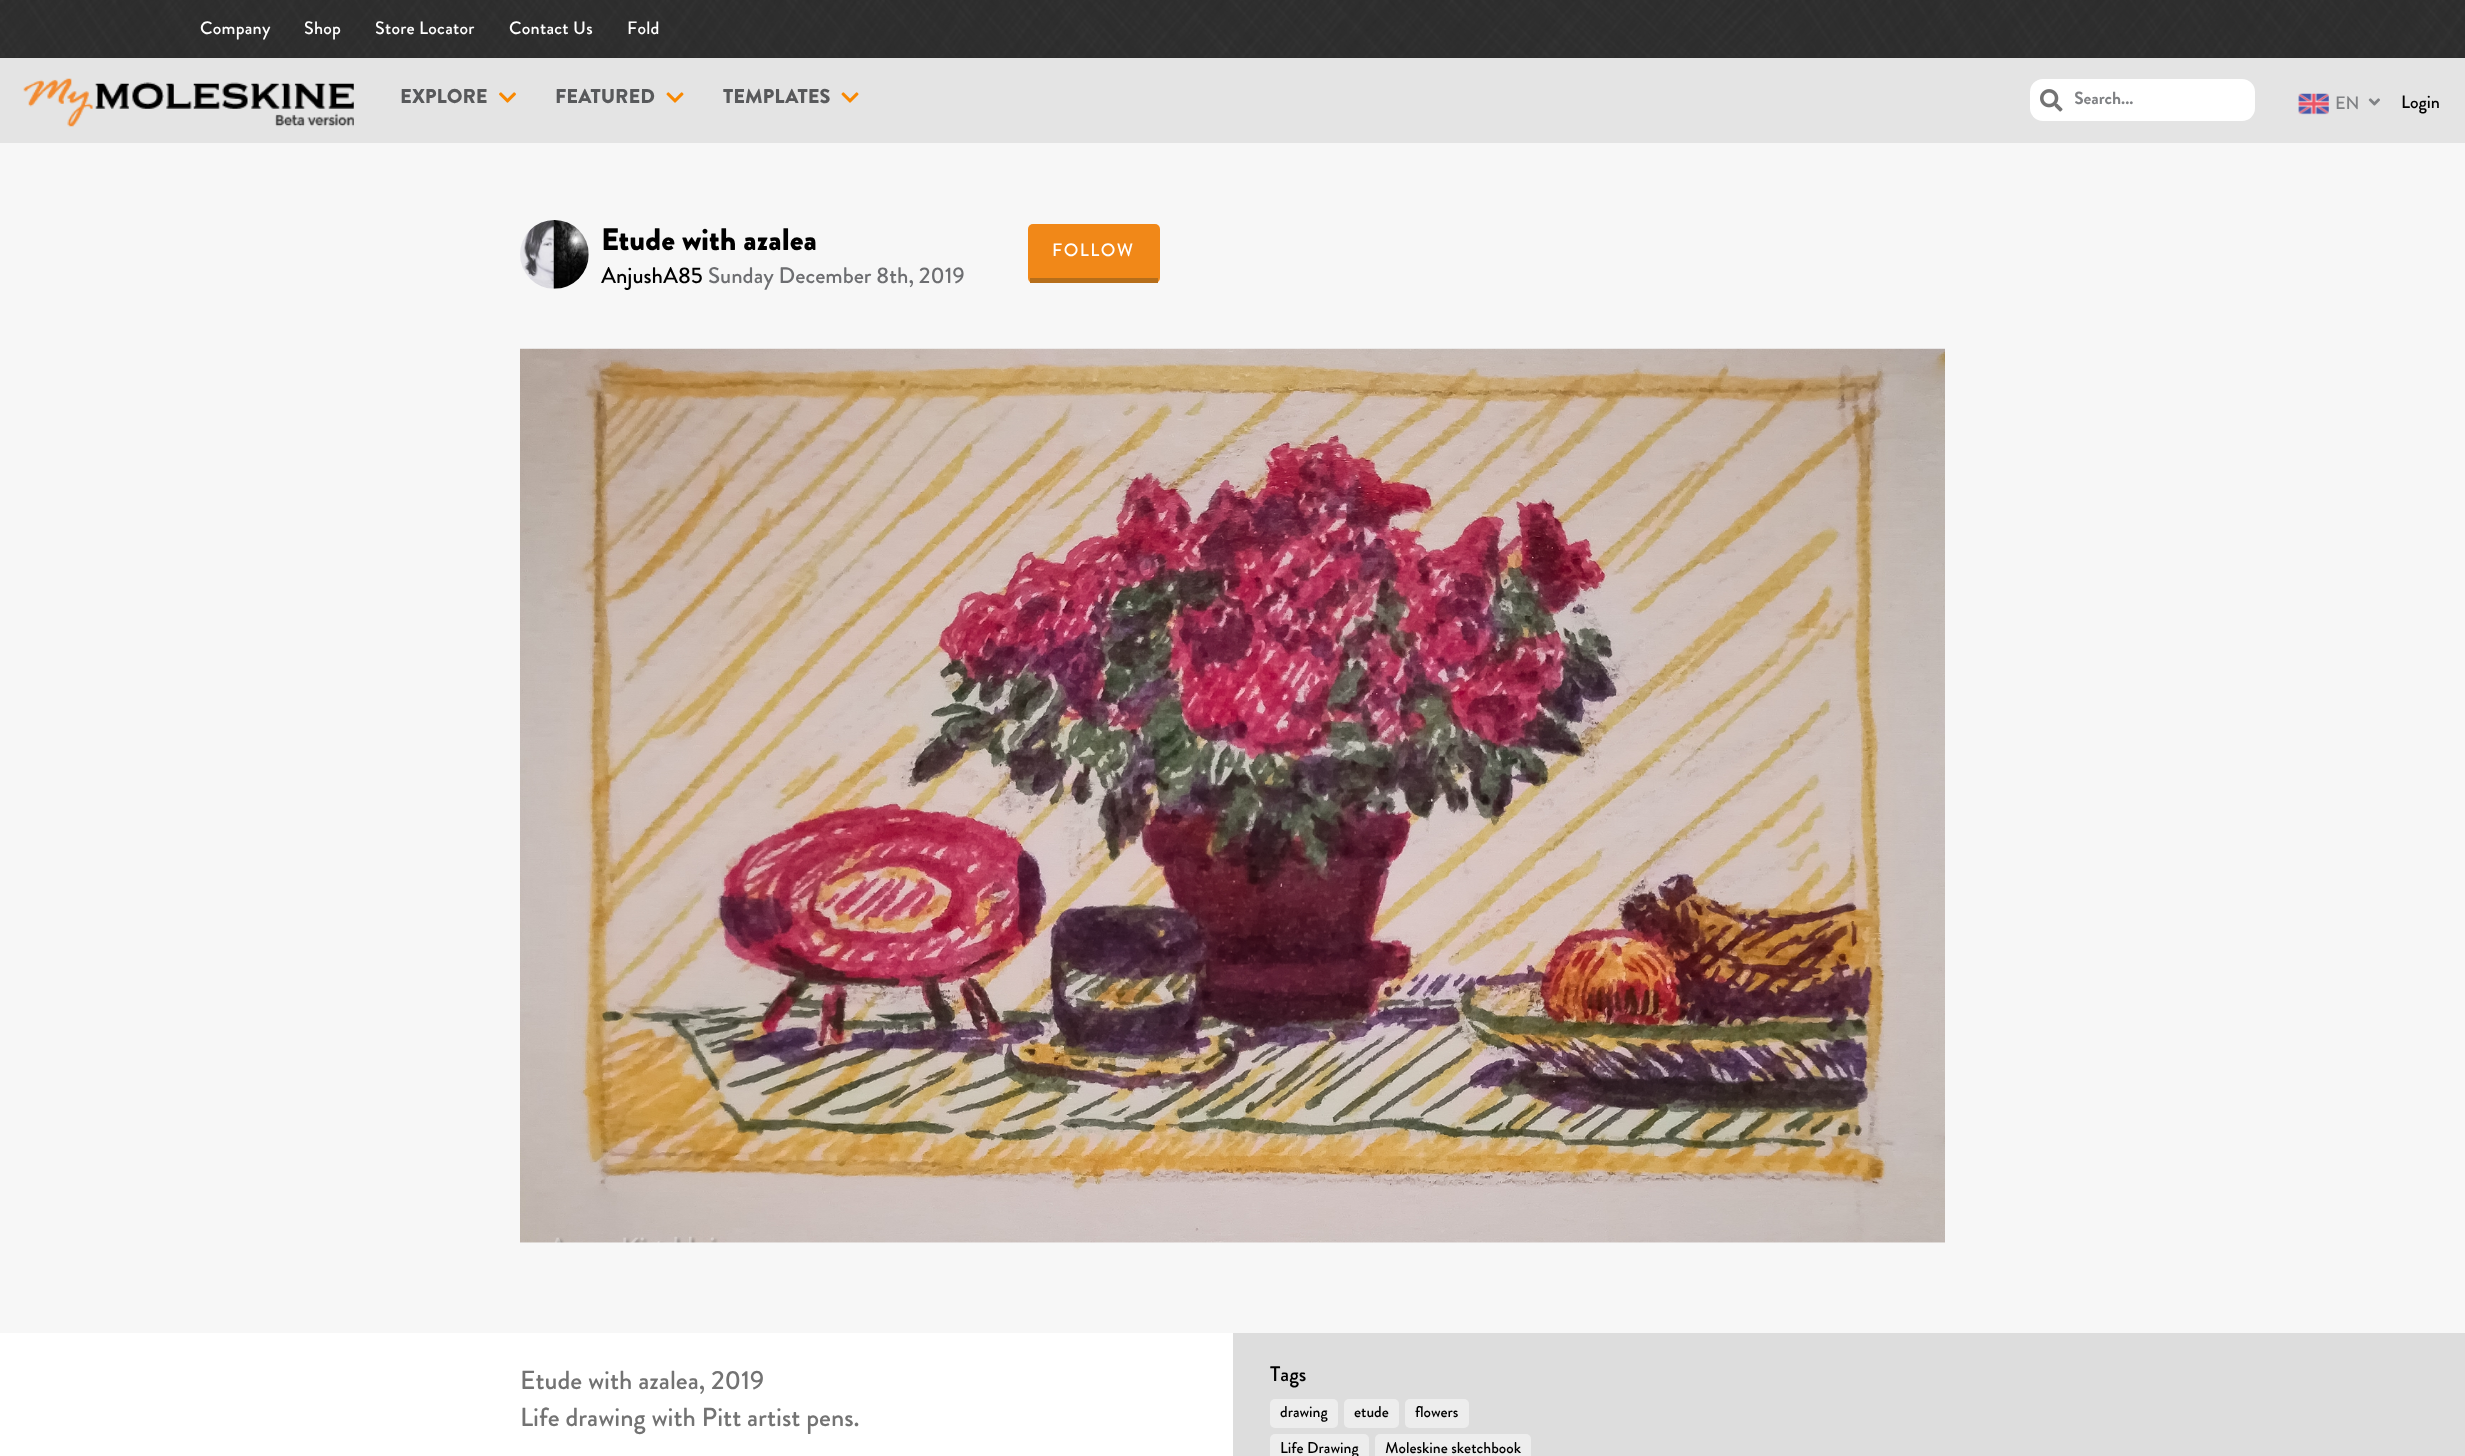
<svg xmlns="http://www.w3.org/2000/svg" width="2465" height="1456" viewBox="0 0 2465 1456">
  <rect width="100%" height="100%" fill="#ffffff"/>
  <rect x="0" y="58" width="2465" height="85" fill="#e4e4e4"/>
  <rect x="0" y="57" width="2465" height="1" fill="#2b2b2b"/>
  <image x="0" y="0" width="2465" height="58" href="img1.png"/>
  <text x="200" y="34" font-family="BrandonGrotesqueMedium" font-size="18" font-weight="500" letter-spacing="0.25" fill="#ffffff">Company</text>
  <text x="304" y="34" font-family="BrandonGrotesqueMedium" font-size="18" font-weight="500" letter-spacing="0.25" fill="#ffffff">Shop</text>
  <text x="375" y="34" font-family="BrandonGrotesqueMedium" font-size="18" font-weight="500" letter-spacing="0.25" fill="#ffffff">Store Locator</text>
  <text x="509" y="34" font-family="BrandonGrotesqueMedium" font-size="18" font-weight="500" letter-spacing="0.25" fill="#ffffff">Contact Us</text>
  <text x="627" y="34" font-family="BrandonGrotesqueMedium" font-size="18" font-weight="500" letter-spacing="0.25" fill="#ffffff">Fold</text>
  <image x="23" y="78" width="331" height="49" href="img2.png"/>
  <text x="400" y="103" font-family="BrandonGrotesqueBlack" font-size="20" font-weight="900" fill="#58595b">EXPLORE</text>
  <image x="499" y="92" width="17" height="11" href="img3.png"/>
  <text x="555" y="103" font-family="BrandonGrotesqueBlack" font-size="20" font-weight="900" fill="#58595b">FEATURED</text>
  <image x="666" y="92" width="18" height="11" href="img4.png"/>
  <text x="723" y="103" font-family="BrandonGrotesqueBlack" font-size="20" font-weight="900" fill="#58595b">TEMPLATES</text>
  <image x="841" y="92" width="18" height="11" href="img4.png"/>
  <rect x="2030" y="79" width="225" height="42" rx="13" fill="#ffffff"/>
  <image x="2040" y="89" width="23" height="23" href="img5.png"/>
  <text x="2074" y="104" font-family="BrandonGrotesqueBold" font-size="17.5" font-weight="bold" fill="#808285">Search...</text>
  <image x="2298" y="93" width="31" height="22" href="img6.png"/>
  <text x="2335" y="109" font-family="BrandonGrotesqueMedium" font-size="18" font-weight="500" fill="#808285">EN</text>
  <image x="2368" y="98" width="12" height="8" href="img7.png"/>
  <text x="2401" y="108" font-family="BrandonGrotesqueMedium" font-size="18" font-weight="500" fill="#000000">Login</text>
  <rect x="0" y="143" width="2465" height="1190" fill="#f7f7f7"/>
  <image x="520" y="220" width="69" height="69" href="img8.png"/>
  <text x="601" y="250" font-family="BrandonGrotesqueBlack" font-size="31.25" font-weight="900" fill="#000000">Etude with azalea</text>
  <text x="601" y="283" font-family="BrandonGrotesqueMedium" font-size="22.5" font-weight="500" fill="#000000">AnjushA85</text>
  <text x="708" y="283" font-family="BrandonGrotesqueMedium" font-size="22.5" font-weight="500" fill="#6d6e71">Sunday December 8th, 2019</text>
  <rect x="1028" y="224" width="132" height="59" rx="5" fill="#f18818"/>
  <rect x="1030" y="278" width="128" height="5" fill="#b66e1a"/>
  <text x="1052" y="256" font-family="BrandonGrotesqueMedium" font-size="18" font-weight="500" letter-spacing="1.5" fill="#ffffff">FOLLOW</text>
  <image x="520" y="348" width="1425" height="895" href="img9.png"/>
  <text x="520" y="1389" font-family="BrandonGrotesqueMedium" font-size="26.25" font-weight="500" fill="#737373">Etude with azalea, 2019</text>
  <text x="520" y="1426" font-family="BrandonGrotesqueMedium" font-size="26.25" font-weight="500" fill="#737373">Life drawing with Pitt artist pens.</text>
  <rect x="1233" y="1333" width="1232" height="123" fill="#dddddd"/>
  <text x="1270" y="1381" font-family="BrandonGrotesqueMedium" font-size="21" font-weight="500" fill="#000000">Tags</text>
  <rect x="1270" y="1399" width="68" height="29" rx="5" fill="#ededed"/>
  <text x="1280" y="1417" font-family="BrandonGrotesqueMedium" font-size="15.6" font-weight="500" fill="#000000">drawing</text>
  <rect x="1344" y="1399" width="55" height="29" rx="5" fill="#ededed"/>
  <text x="1354" y="1417" font-family="BrandonGrotesqueMedium" font-size="15.6" font-weight="500" fill="#000000">etude</text>
  <rect x="1405" y="1399" width="64" height="29" rx="5" fill="#ededed"/>
  <text x="1415" y="1417" font-family="BrandonGrotesqueMedium" font-size="15.6" font-weight="500" fill="#000000">flowers</text>
  <rect x="1270" y="1434" width="99" height="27" rx="5" fill="#ededed"/>
  <text x="1280" y="1453" font-family="BrandonGrotesqueMedium" font-size="15.6" font-weight="500" fill="#000000">Life Drawing</text>
  <rect x="1375" y="1434" width="156" height="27" rx="5" fill="#ededed"/>
  <text x="1385" y="1453" font-family="BrandonGrotesqueMedium" font-size="15.6" font-weight="500" fill="#000000">Moleskine sketchbook</text>
</svg>
